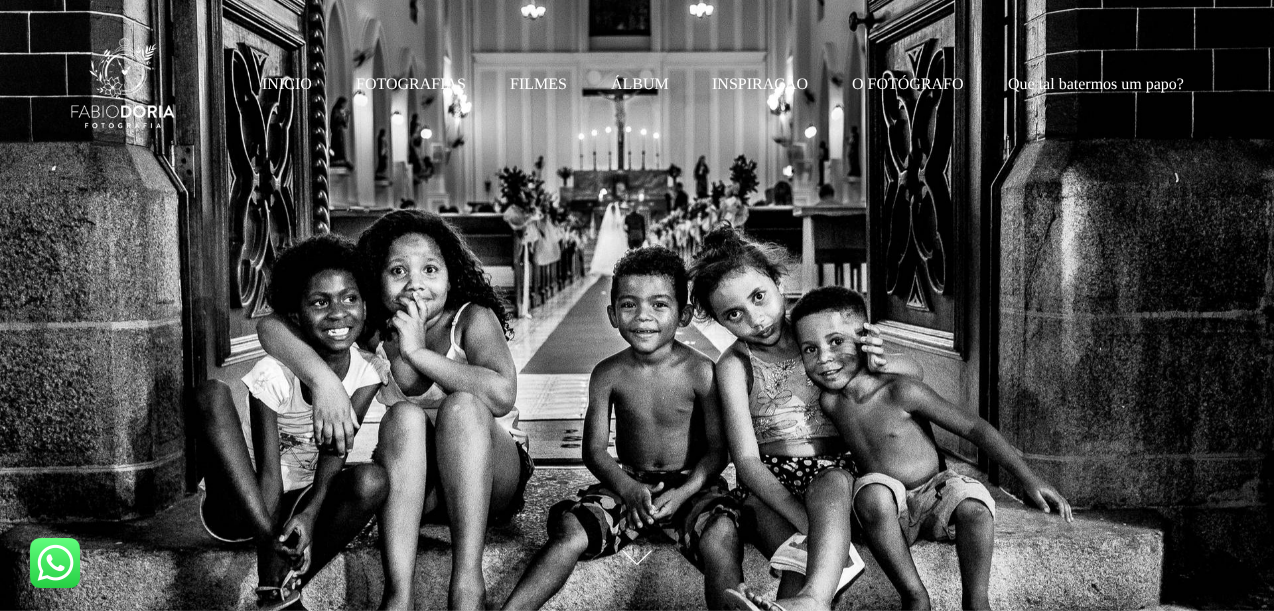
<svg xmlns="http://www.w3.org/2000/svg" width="1274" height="611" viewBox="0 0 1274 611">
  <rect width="100%" height="100%" fill="#ffffff"/>
  <image x="0" y="0" width="1274" height="611" href="img1.png"/>
  <path d="M622.5 550.5L637 564.5L651.5 550.5" fill="none" stroke="#ffffff" stroke-width="1.2"/>
  <image x="71" y="37" width="104" height="92" href="img2.png"/>
  <text x="262" y="89" font-family="Liberation Serif" font-size="16" fill="#ffffff">INICIO</text>
  <text x="356" y="89" font-family="Liberation Serif" font-size="16" fill="#ffffff">FOTOGRAFIAS</text>
  <text x="510" y="89" font-family="Liberation Serif" font-size="16" fill="#ffffff">FILMES</text>
  <text x="611" y="89" font-family="Liberation Serif" font-size="16" fill="#ffffff">ÁLBUM</text>
  <text x="712" y="89" font-family="Liberation Serif" font-size="16" fill="#ffffff">INSPIRAÇÃO</text>
  <text x="852" y="89" font-family="Liberation Serif" font-size="16" fill="#ffffff">O FOTÓGRAFO</text>
  <text x="1008" y="89" font-family="Liberation Serif" font-size="16" fill="#ffffff">Que tal batermos um papo?</text>
  <image x="30" y="538" width="50" height="50" href="img3.png"/>
</svg>
